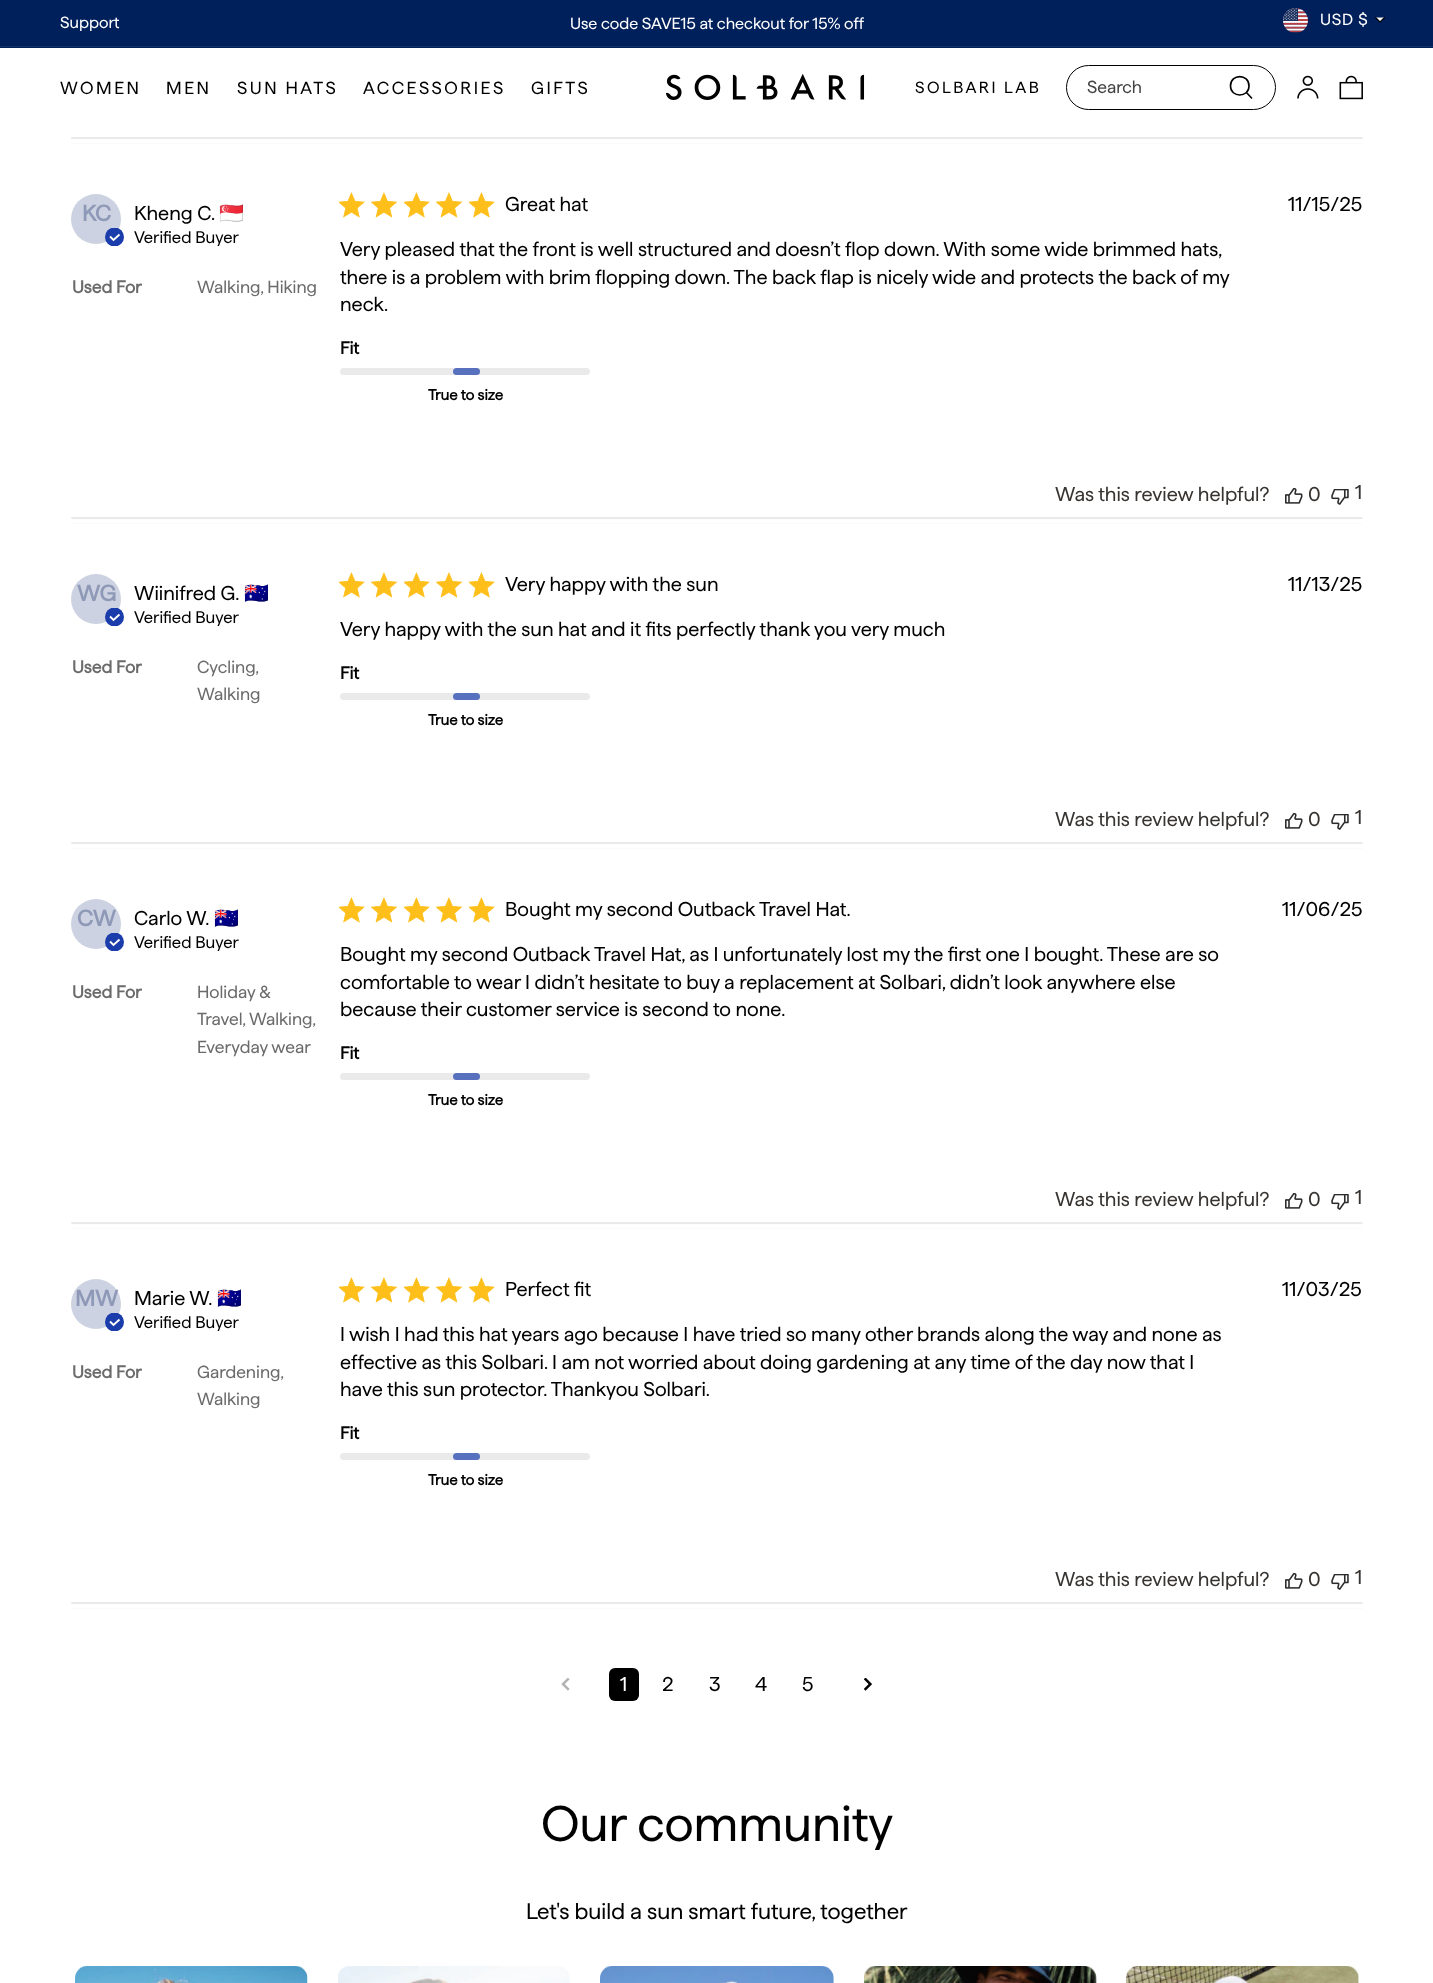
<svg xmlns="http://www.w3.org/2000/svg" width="1433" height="1983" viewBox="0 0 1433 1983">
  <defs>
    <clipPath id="clip1"><rect x="105" y="228" width="19" height="18"/></clipPath>
    <clipPath id="clip2"><rect x="105" y="608" width="19" height="18"/></clipPath>
    <clipPath id="clip3"><rect x="105" y="933" width="19" height="18"/></clipPath>
    <clipPath id="clip4"><rect x="105" y="1313" width="19" height="18"/></clipPath>
  </defs>
  <rect width="100%" height="100%" fill="#ffffff"/>
  <rect x="0" y="0" width="1433" height="48" fill="#00205b"/>
  <rect x="0" y="46" width="1433" height="1" fill="#143268"/>
  <text x="60" y="28" font-family="'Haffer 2'" font-size="16.25" fill="#ffffff">Support</text>
  <text x="570" y="29" font-family="'Haffer 2'" font-size="16.25" fill="#ffffff">Use code SAVE15 at checkout for 15% off</text>
  <image x="1283" y="8" width="25" height="25" href="img1.png"/>
  <text x="1320" y="25" font-family="'Haffer 2'" font-size="16.25" letter-spacing="0.75" fill="#ffffff">USD $</text>
  <image x="1375" y="17" width="10" height="6" href="img2.png"/>
  <text x="60" y="94" font-family="'Haffer 2'" font-size="17.5" letter-spacing="2.5" fill="#000000">WOMEN</text>
  <text x="166" y="94" font-family="'Haffer 2'" font-size="17.5" letter-spacing="2.5" fill="#000000">MEN</text>
  <text x="237" y="94" font-family="'Haffer 2'" font-size="17.5" letter-spacing="2.5" fill="#000000">SUN HATS</text>
  <text x="363" y="94" font-family="'Haffer 2'" font-size="17.5" letter-spacing="2.5" fill="#000000">ACCESSORIES</text>
  <text x="531" y="94" font-family="'Haffer 2'" font-size="17.5" letter-spacing="2.5" fill="#000000">GIFTS</text>
  <image x="666" y="74" width="199" height="26" href="img3.png"/>
  <text x="915" y="93" font-family="'Haffer 2'" font-size="16.25" letter-spacing="2.5" fill="#000000">SOLBARI LAB</text>
  <rect x="1066.5" y="65.5" width="209" height="44" rx="22" fill="none" stroke="#000000"/>
  <text x="1087" y="93" font-family="'Haffer 2'" font-size="17.5" fill="#444444">Search</text>
  <path d="M1246 92L1252 98.5M1249 86C1249 73.5 1230.5 73.5 1230.5 86C1230.5 98 1249 98 1249 86Z" fill="none" stroke="#000000" stroke-width="1.6"/>
  <image x="1297" y="75" width="22" height="24" href="img4.png"/>
  <image x="1339" y="75" width="24" height="25" href="img5.png"/>
  <image x="71" y="137" width="1292" height="7" href="img6.png"/>
  <circle cx="96" cy="219" r="25" fill="#ccd2e1"/>
  <text x="82" y="221" font-family="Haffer" font-size="22.5" font-weight="bold" fill="#8e99b7">KC</text>
  <g clip-path="url(#clip1)">
    <circle cx="114.5" cy="237" r="9.5" fill="#1a3dab"/>
  </g>
  <path d="M110 236.5L113.5 240L119.5 234.5" fill="none" stroke="#ffffff" stroke-width="1.9"/>
  <text x="134" y="220" font-family="Haffer" font-size="20" fill="#000000">Kheng C.</text>
  <text x="219" y="220" font-family="Noto Color Emoji" font-size="20" fill="#000000">🇸🇬</text>
  <text x="134" y="243" font-family="Haffer" font-size="16.75" fill="#000000">Verified Buyer</text>
  <text x="72" y="293" font-family="Haffer" font-size="17.5" font-weight="bold" fill="#6b6b6b">Used For</text>
  <text x="197" y="293" font-family="Haffer" font-size="17.5" fill="#6b6b6b">Walking, Hiking</text>
  <image x="339" y="192" width="26" height="26" href="img7.png"/>
  <image x="371" y="192" width="27" height="26" href="img8.png"/>
  <image x="404" y="192" width="26" height="26" href="img7.png"/>
  <image x="436" y="192" width="27" height="26" href="img8.png"/>
  <image x="469" y="192" width="26" height="26" href="img7.png"/>
  <text x="505" y="211" font-family="Haffer" font-size="20" fill="#000000">Great hat</text>
  <text x="340" y="256" font-family="Haffer" font-size="20" fill="#000000">Very pleased that the front is well structured and doesn’t flop down. With some wide brimmed hats,</text>
  <text x="340" y="284" font-family="Haffer" font-size="20" fill="#000000">there is a problem with brim flopping down. The back flap is nicely wide and protects the back of my</text>
  <text x="340" y="311" font-family="Haffer" font-size="20" fill="#000000">neck.</text>
  <text x="340" y="354" font-family="Haffer" font-size="17.5" font-weight="bold" fill="#000000">Fit</text>
  <rect x="340" y="368" width="250" height="7" rx="3.5" fill="#eaeaea"/>
  <rect x="453" y="368" width="27" height="7" rx="3.5" fill="#5871be"/>
  <text x="428" y="400" font-family="Haffer" font-size="15" font-weight="bold" fill="#000000">True to size</text>
  <text x="1288" y="211" font-family="Haffer" font-size="20" fill="#000000">11/15/25</text>
  <text x="1055" y="501" font-family="Haffer" font-size="20" fill="#373330">Was this review helpful?</text>
  <image x="1285" y="488" width="18" height="16" href="img9.png"/>
  <text x="1308" y="501" font-family="Haffer" font-size="20" fill="#373330">0</text>
  <image x="1331" y="489" width="18" height="16" href="img10.png"/>
  <text x="1355" y="499" font-family="Haffer" font-size="20" fill="#373330">1</text>
  <image x="71" y="517" width="1292" height="7" href="img6.png"/>
  <circle cx="96" cy="599" r="25" fill="#ccd2e1"/>
  <text x="77" y="601" font-family="Haffer" font-size="22.5" font-weight="bold" fill="#8e99b7">WG</text>
  <g clip-path="url(#clip2)">
    <circle cx="114.5" cy="617" r="9.5" fill="#1a3dab"/>
  </g>
  <path d="M110 616.5L113.5 620L119.5 614.5" fill="none" stroke="#ffffff" stroke-width="1.9"/>
  <text x="134" y="600" font-family="Haffer" font-size="20" fill="#000000">Wiinifred G.</text>
  <text x="244" y="600" font-family="Noto Color Emoji" font-size="20" fill="#000000">🇦🇺</text>
  <text x="134" y="623" font-family="Haffer" font-size="16.75" fill="#000000">Verified Buyer</text>
  <text x="72" y="673" font-family="Haffer" font-size="17.5" font-weight="bold" fill="#6b6b6b">Used For</text>
  <text x="197" y="673" font-family="Haffer" font-size="17.5" fill="#6b6b6b">Cycling,</text>
  <text x="197" y="700" font-family="Haffer" font-size="17.5" fill="#6b6b6b">Walking</text>
  <image x="339" y="572" width="26" height="26" href="img7.png"/>
  <image x="371" y="572" width="27" height="26" href="img8.png"/>
  <image x="404" y="572" width="26" height="26" href="img7.png"/>
  <image x="436" y="572" width="27" height="26" href="img8.png"/>
  <image x="469" y="572" width="26" height="26" href="img7.png"/>
  <text x="505" y="591" font-family="Haffer" font-size="20" fill="#000000">Very happy with the sun</text>
  <text x="340" y="636" font-family="Haffer" font-size="20" fill="#000000">Very happy with the sun hat and it fits perfectly thank you very much</text>
  <text x="340" y="679" font-family="Haffer" font-size="17.5" font-weight="bold" fill="#000000">Fit</text>
  <rect x="340" y="693" width="250" height="7" rx="3.5" fill="#eaeaea"/>
  <rect x="453" y="693" width="27" height="7" rx="3.5" fill="#5871be"/>
  <text x="428" y="725" font-family="Haffer" font-size="15" font-weight="bold" fill="#000000">True to size</text>
  <text x="1288" y="591" font-family="Haffer" font-size="20" fill="#000000">11/13/25</text>
  <text x="1055" y="826" font-family="Haffer" font-size="20" fill="#373330">Was this review helpful?</text>
  <image x="1285" y="813" width="18" height="16" href="img9.png"/>
  <text x="1308" y="826" font-family="Haffer" font-size="20" fill="#373330">0</text>
  <image x="1331" y="814" width="18" height="16" href="img10.png"/>
  <text x="1355" y="824" font-family="Haffer" font-size="20" fill="#373330">1</text>
  <image x="71" y="842" width="1292" height="7" href="img6.png"/>
  <circle cx="96" cy="924" r="25" fill="#ccd2e1"/>
  <text x="77" y="926" font-family="Haffer" font-size="22.5" font-weight="bold" fill="#8e99b7">CW</text>
  <g clip-path="url(#clip3)">
    <circle cx="114.5" cy="942" r="9.5" fill="#1a3dab"/>
  </g>
  <path d="M110 941.5L113.5 945L119.5 939.5" fill="none" stroke="#ffffff" stroke-width="1.9"/>
  <text x="134" y="925" font-family="Haffer" font-size="20" fill="#000000">Carlo W.</text>
  <text x="214" y="925" font-family="Noto Color Emoji" font-size="20" fill="#000000">🇦🇺</text>
  <text x="134" y="948" font-family="Haffer" font-size="16.75" fill="#000000">Verified Buyer</text>
  <text x="72" y="998" font-family="Haffer" font-size="17.5" font-weight="bold" fill="#6b6b6b">Used For</text>
  <text x="197" y="998" font-family="Haffer" font-size="17.5" fill="#6b6b6b">Holiday &amp;</text>
  <text x="197" y="1025" font-family="Haffer" font-size="17.5" fill="#6b6b6b">Travel, Walking,</text>
  <text x="197" y="1053" font-family="Haffer" font-size="17.5" fill="#6b6b6b">Everyday wear</text>
  <image x="339" y="897" width="26" height="26" href="img7.png"/>
  <image x="371" y="897" width="27" height="26" href="img8.png"/>
  <image x="404" y="897" width="26" height="26" href="img7.png"/>
  <image x="436" y="897" width="27" height="26" href="img8.png"/>
  <image x="469" y="897" width="26" height="26" href="img7.png"/>
  <text x="505" y="916" font-family="Haffer" font-size="20" fill="#000000">Bought my second Outback Travel Hat.</text>
  <text x="340" y="961" font-family="Haffer" font-size="20" fill="#000000">Bought my second Outback Travel Hat, as I unfortunately lost my the first one I bought. These are so</text>
  <text x="340" y="989" font-family="Haffer" font-size="20" fill="#000000">comfortable to wear I didn’t hesitate to buy a replacement at Solbari, didn’t look anywhere else</text>
  <text x="340" y="1016" font-family="Haffer" font-size="20" fill="#000000">because their customer service is second to none.</text>
  <text x="340" y="1059" font-family="Haffer" font-size="17.5" font-weight="bold" fill="#000000">Fit</text>
  <rect x="340" y="1073" width="250" height="7" rx="3.5" fill="#eaeaea"/>
  <rect x="453" y="1073" width="27" height="7" rx="3.5" fill="#5871be"/>
  <text x="428" y="1105" font-family="Haffer" font-size="15" font-weight="bold" fill="#000000">True to size</text>
  <text x="1282" y="916" font-family="Haffer" font-size="20" fill="#000000">11/06/25</text>
  <text x="1055" y="1206" font-family="Haffer" font-size="20" fill="#373330">Was this review helpful?</text>
  <image x="1285" y="1193" width="18" height="16" href="img9.png"/>
  <text x="1308" y="1206" font-family="Haffer" font-size="20" fill="#373330">0</text>
  <image x="1331" y="1194" width="18" height="16" href="img10.png"/>
  <text x="1355" y="1204" font-family="Haffer" font-size="20" fill="#373330">1</text>
  <image x="71" y="1222" width="1292" height="7" href="img6.png"/>
  <circle cx="96" cy="1304" r="25" fill="#ccd2e1"/>
  <text x="75" y="1306" font-family="Haffer" font-size="22.5" font-weight="bold" fill="#8e99b7">MW</text>
  <g clip-path="url(#clip4)">
    <circle cx="114.5" cy="1322" r="9.5" fill="#1a3dab"/>
  </g>
  <path d="M110 1321.5L113.5 1325L119.5 1319.5" fill="none" stroke="#ffffff" stroke-width="1.9"/>
  <text x="134" y="1305" font-family="Haffer" font-size="20" fill="#000000">Marie W.</text>
  <text x="217" y="1305" font-family="Noto Color Emoji" font-size="20" fill="#000000">🇦🇺</text>
  <text x="134" y="1328" font-family="Haffer" font-size="16.75" fill="#000000">Verified Buyer</text>
  <text x="72" y="1378" font-family="Haffer" font-size="17.5" font-weight="bold" fill="#6b6b6b">Used For</text>
  <text x="197" y="1378" font-family="Haffer" font-size="17.5" fill="#6b6b6b">Gardening,</text>
  <text x="197" y="1405" font-family="Haffer" font-size="17.5" fill="#6b6b6b">Walking</text>
  <image x="339" y="1277" width="26" height="26" href="img7.png"/>
  <image x="371" y="1277" width="27" height="26" href="img8.png"/>
  <image x="404" y="1277" width="26" height="26" href="img7.png"/>
  <image x="436" y="1277" width="27" height="26" href="img8.png"/>
  <image x="469" y="1277" width="26" height="26" href="img7.png"/>
  <text x="505" y="1296" font-family="Haffer" font-size="20" fill="#000000">Perfect fit</text>
  <text x="340" y="1341" font-family="Haffer" font-size="20" fill="#000000">I wish I had this hat years ago because I have tried so many other brands along the way and none as</text>
  <text x="340" y="1369" font-family="Haffer" font-size="20" fill="#000000">effective as this Solbari. I am not worried about doing gardening at any time of the day now that I</text>
  <text x="340" y="1396" font-family="Haffer" font-size="20" fill="#000000">have this sun protector. Thankyou Solbari.</text>
  <text x="340" y="1439" font-family="Haffer" font-size="17.5" font-weight="bold" fill="#000000">Fit</text>
  <rect x="340" y="1453" width="250" height="7" rx="3.5" fill="#eaeaea"/>
  <rect x="453" y="1453" width="27" height="7" rx="3.5" fill="#5871be"/>
  <text x="428" y="1485" font-family="Haffer" font-size="15" font-weight="bold" fill="#000000">True to size</text>
  <text x="1282" y="1296" font-family="Haffer" font-size="20" fill="#000000">11/03/25</text>
  <text x="1055" y="1586" font-family="Haffer" font-size="20" fill="#373330">Was this review helpful?</text>
  <image x="1285" y="1573" width="18" height="16" href="img9.png"/>
  <text x="1308" y="1586" font-family="Haffer" font-size="20" fill="#373330">0</text>
  <image x="1331" y="1574" width="18" height="16" href="img10.png"/>
  <text x="1355" y="1584" font-family="Haffer" font-size="20" fill="#373330">1</text>
  <image x="71" y="1602" width="1292" height="7" href="img6.png"/>
  <image x="561" y="1678" width="9" height="13" href="img11.png"/>
  <rect x="609" y="1668" width="30" height="33" rx="6" fill="#000000"/>
  <text x="620" y="1691" font-family="Haffer" font-size="20" fill="#ffffff">1</text>
  <text x="662" y="1691" font-family="Haffer" font-size="20" fill="#000000">2</text>
  <text x="709" y="1691" font-family="Haffer" font-size="20" fill="#000000">3</text>
  <text x="755" y="1691" font-family="Haffer" font-size="20" fill="#000000">4</text>
  <text x="802" y="1691" font-family="Haffer" font-size="20" fill="#000000">5</text>
  <image x="864" y="1678" width="8" height="13" href="img12.png"/>
  <text x="541" y="1841" font-family="'Haffer 2'" font-size="50" fill="#000000">Our community</text>
  <text x="526" y="1919" font-family="'Haffer 2'" font-size="22.5" fill="#000000">Let's build a sun smart future, together</text>
  <image x="75" y="1966" width="233" height="17" href="img13.png"/>
  <image x="338" y="1966" width="232" height="17" href="img14.png"/>
  <image x="600" y="1966" width="234" height="17" href="img15.png"/>
  <image x="864" y="1966" width="233" height="17" href="img16.png"/>
  <image x="1126" y="1966" width="233" height="17" href="img17.png"/>
</svg>
